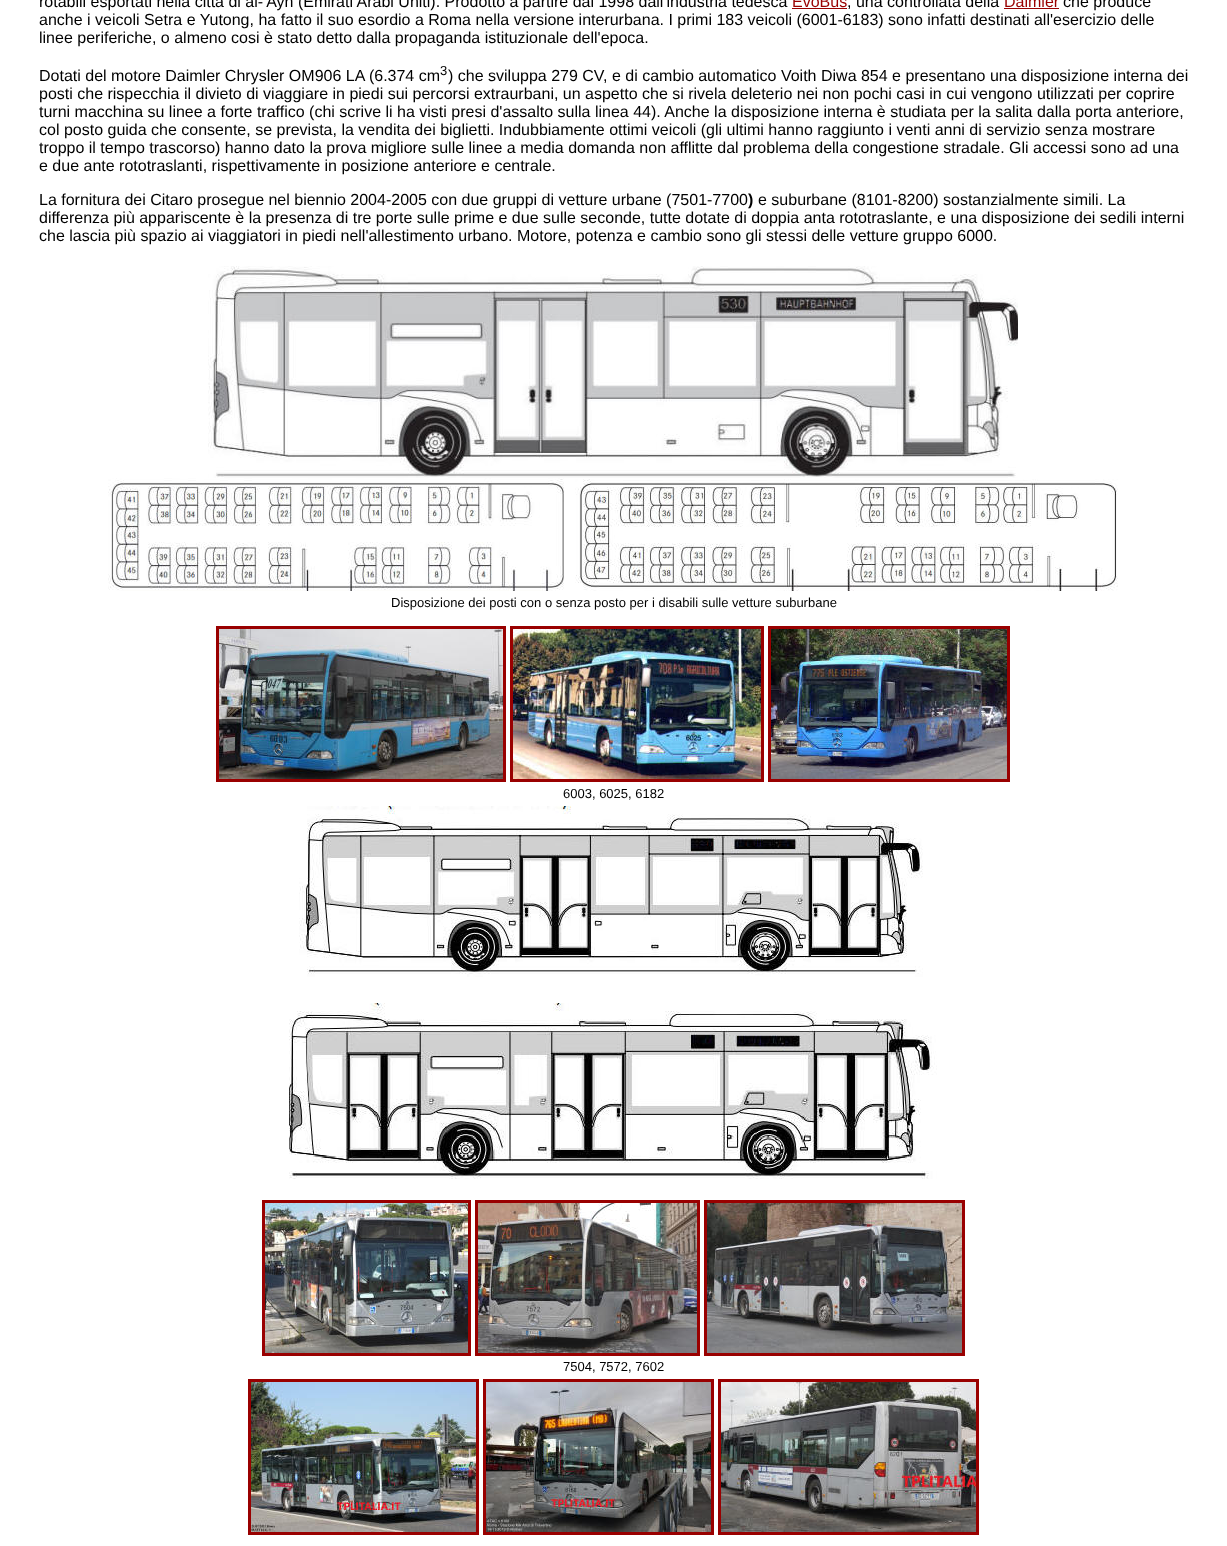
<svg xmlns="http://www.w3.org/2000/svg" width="1227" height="1546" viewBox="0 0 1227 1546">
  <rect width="100%" height="100%" fill="#ffffff"/>
  <text x="39" y="7" font-family="Liberation Sans" font-size="16" fill="#000000">rotabili esportati nella città di al-'Ayn (Emirati Arabi Uniti). Prodotto a partire dal 1998 dall'industria tedesca</text>
  <text x="792" y="7" font-family="Liberation Sans" font-size="16" fill="#990000">EvoBus</text>
  <text x="847" y="7" font-family="Liberation Sans" font-size="16" fill="#000000">, una controllata della</text>
  <rect x="792" y="8" width="55" height="1" fill="#990000"/>
  <text x="1004" y="7" font-family="Liberation Sans" font-size="16" fill="#990000">Daimler</text>
  <rect x="1004" y="8" width="55" height="1" fill="#990000"/>
  <text x="1063" y="7" font-family="Liberation Sans" font-size="16" fill="#000000">che produce</text>
  <text x="39" y="25" font-family="Liberation Sans" font-size="16" fill="#000000">anche i veicoli Setra e Yutong, ha fatto il suo esordio a Roma nella versione interurbana. I primi 183 veicoli (6001-6183) sono infatti destinati all'esercizio delle</text>
  <text x="39" y="43" font-family="Liberation Sans" font-size="16" fill="#000000">linee periferiche, o almeno cosi è stato detto dalla propaganda istituzionale dell'epoca.</text>
  <text x="39" y="81" font-family="Liberation Sans" font-size="16" fill="#000000">Dotati del motore Daimler Chrysler OM906 LA (6.374 cm</text>
  <text x="440" y="75" font-family="Liberation Sans" font-size="13" fill="#000000">3</text>
  <text x="448" y="81" font-family="Liberation Sans" font-size="16" fill="#000000">) che sviluppa 279 CV, e di cambio automatico Voith Diwa 854 e presentano una disposizione interna dei</text>
  <text x="39" y="99" font-family="Liberation Sans" font-size="16" fill="#000000">posti che rispecchia il divieto di viaggiare in piedi sui percorsi extraurbani, un aspetto che si rivela deleterio nei non pochi casi in cui vengono utilizzati per coprire</text>
  <text x="39" y="117" font-family="Liberation Sans" font-size="16" fill="#000000">turni macchina su linee a forte traffico (chi scrive li ha visti presi d'assalto sulla linea 44). Anche la disposizione interna è studiata per la salita dalla porta anteriore,</text>
  <text x="39" y="135" font-family="Liberation Sans" font-size="16" fill="#000000">col posto guida che consente, se prevista, la vendita dei biglietti. Indubbiamente ottimi veicoli (gli ultimi hanno raggiunto i venti anni di servizio senza mostrare</text>
  <text x="39" y="153" font-family="Liberation Sans" font-size="16" fill="#000000">troppo il tempo trascorso) hanno dato la prova migliore sulle linee a media domanda non afflitte dal problema della congestione stradale. Gli accessi sono ad una</text>
  <text x="39" y="171" font-family="Liberation Sans" font-size="16" fill="#000000">e due ante rototraslanti, rispettivamente in posizione anteriore e centrale.</text>
  <text x="39" y="205" font-family="Liberation Sans" font-size="16" fill="#000000">La fornitura dei Citaro prosegue nel biennio 2004-2005 con due gruppi di vetture urbane (7501-7700</text>
  <text x="748" y="205" font-family="Liberation Sans" font-size="16" font-weight="bold" fill="#000000">)</text>
  <text x="758" y="205" font-family="Liberation Sans" font-size="16" fill="#000000">e suburbane (8101-8200) sostanzialmente simili. La</text>
  <text x="39" y="223" font-family="Liberation Sans" font-size="16" fill="#000000">differenza più appariscente è la presenza di tre porte sulle prime e due sulle seconde, tutte dotate di doppia anta rototraslante, e una disposizione dei sedili interni</text>
  <text x="39" y="241" font-family="Liberation Sans" font-size="16" fill="#000000">che lascia più spazio ai viaggiatori in piedi nell'allestimento urbano. Motore, potenza e cambio sono gli stessi delle vetture gruppo 6000.</text>
  <image x="208" y="266" width="810" height="212" href="img1.png"/>
  <image x="108" y="478" width="456" height="113" href="img2.png"/>
  <image x="575" y="479" width="543" height="112" href="img3.png"/>
  <text x="391" y="607" font-family="Liberation Sans" font-size="13" fill="#000000">Disposizione dei posti con o senza posto per i disabili sulle vetture suburbane</text>
  <rect x="217.5" y="627.5" width="287" height="153" fill="none" stroke="#990000" stroke-width="3"/>
  <rect x="511.5" y="627.5" width="251" height="153" fill="none" stroke="#990000" stroke-width="3"/>
  <rect x="769.5" y="627.5" width="239" height="153" fill="none" stroke="#990000" stroke-width="3"/>
  <image x="219" y="629" width="284" height="150" href="img4.png"/>
  <image x="513" y="629" width="248" height="150" href="img5.png"/>
  <image x="771" y="629" width="236" height="150" href="img6.png"/>
  <text x="563" y="798" font-family="Liberation Sans" font-size="13" fill="#000000">6003, 6025, 6182</text>
  <image x="299" y="806" width="624" height="171" href="img7.png"/>
  <image x="289" y="1003" width="648" height="176" href="img8.png"/>
  <rect x="263.5" y="1201.5" width="206" height="153" fill="none" stroke="#990000" stroke-width="3"/>
  <image x="265" y="1203" width="203" height="150" href="img9.png"/>
  <rect x="476.5" y="1201.5" width="222" height="153" fill="none" stroke="#990000" stroke-width="3"/>
  <image x="478" y="1203" width="219" height="150" href="img10.png"/>
  <rect x="705.5" y="1201.5" width="258" height="153" fill="none" stroke="#990000" stroke-width="3"/>
  <image x="707" y="1203" width="255" height="150" href="img11.png"/>
  <text x="563" y="1371" font-family="Liberation Sans" font-size="13" fill="#000000">7504, 7572, 7602</text>
  <rect x="249.5" y="1380.5" width="228" height="153" fill="none" stroke="#990000" stroke-width="3"/>
  <rect x="484.5" y="1380.5" width="228" height="153" fill="none" stroke="#990000" stroke-width="3"/>
  <rect x="719.5" y="1380.5" width="258" height="153" fill="none" stroke="#990000" stroke-width="3"/>
  <image x="251" y="1382" width="225" height="150" href="img12.png"/>
  <image x="486" y="1382" width="225" height="150" href="img13.png"/>
  <image x="721" y="1382" width="255" height="150" href="img14.png"/>
</svg>
